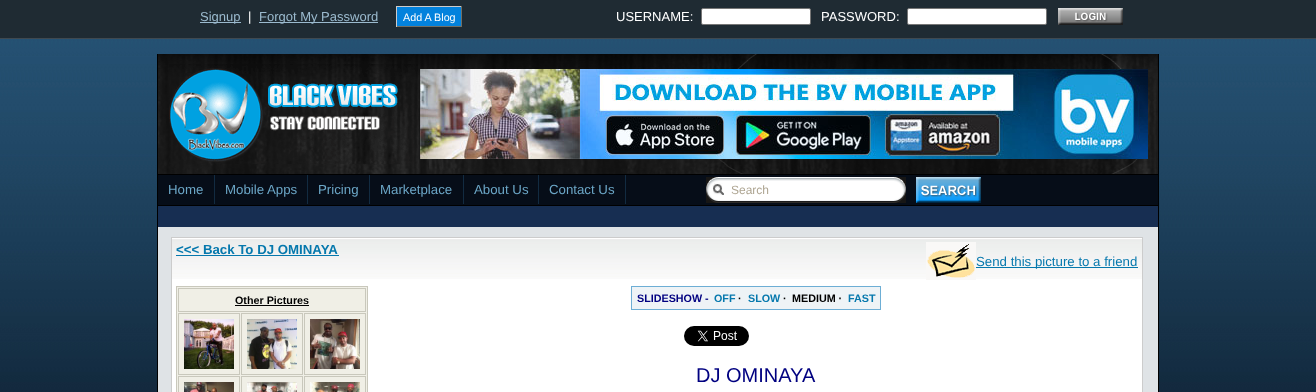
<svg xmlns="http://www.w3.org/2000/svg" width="1316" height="392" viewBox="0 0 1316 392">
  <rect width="100%" height="100%" fill="#ffffff"/>
  <image x="0" y="39" width="1316" height="353" href="img1.png"/>
  <rect x="0" y="0" width="1316" height="38" fill="#1f2b33"/>
  <rect x="0" y="38" width="1316" height="1" fill="#3f4950"/>
  <rect x="200" y="22" width="41" height="1" fill="#9bbace"/>
  <text x="200" y="21" font-family="Liberation Sans" font-size="13" fill="#9bbace">Signup</text>
  <text x="248" y="21" font-family="Liberation Sans" font-size="13" fill="#ffffff">|</text>
  <rect x="259" y="22" width="119" height="1" fill="#9bbace"/>
  <text x="259" y="21" font-family="Liberation Sans" font-size="13" fill="#9bbace">Forgot My Password</text>
  <rect x="397" y="7" width="64" height="19" fill="#0282dd"/>
  <text x="403" y="21" font-family="Liberation Sans" font-size="10.75" fill="#ffffff">Add A Blog</text>
  <rect x="396" y="6" width="66" height="1" fill="#cccccc"/>
  <rect x="461" y="6" width="1" height="21" fill="#716f64"/>
  <rect x="396" y="26" width="66" height="1" fill="#716f64"/>
  <rect x="396" y="6" width="1" height="21" fill="#cccccc"/>
  <text x="616" y="21" font-family="Liberation Sans" font-size="13" fill="#ffffff">USERNAME:</text>
  <rect x="701.5" y="8.5" width="109" height="16" rx="1.5" fill="#ffffff" stroke="#767676"/>
  <text x="821" y="21" font-family="Liberation Sans" font-size="13" fill="#ffffff">PASSWORD:</text>
  <rect x="907.5" y="8.5" width="139" height="16" rx="1.5" fill="#ffffff" stroke="#767676"/>
  <image x="1058" y="8" width="65" height="17" href="img2.png"/>
  <rect x="1158" y="54" width="1" height="338" fill="#000000"/>
  <rect x="157" y="54" width="1" height="338" fill="#000000"/>
  <image x="158" y="54" width="1000" height="120" href="img3.png"/>
  <image x="169" y="64" width="249" height="100" href="img4.png"/>
  <image x="420" y="69" width="728" height="90" href="img5.png"/>
  <rect x="158" y="174" width="1000" height="1" fill="#000000"/>
  <rect x="158" y="205" width="1000" height="1" fill="#000000"/>
  <rect x="158" y="175" width="1000" height="30" fill="#060d18"/>
  <rect x="214" y="175" width="1" height="29" fill="#122b41"/>
  <text x="168" y="194" font-family="Liberation Sans" font-size="13.25" fill="#6ca7c7">Home</text>
  <rect x="307" y="175" width="1" height="29" fill="#122b41"/>
  <text x="225" y="194" font-family="Liberation Sans" font-size="13.25" fill="#6ca7c7">Mobile Apps</text>
  <rect x="369" y="175" width="1" height="29" fill="#122b41"/>
  <text x="318" y="194" font-family="Liberation Sans" font-size="13.25" fill="#6ca7c7">Pricing</text>
  <rect x="463" y="175" width="1" height="29" fill="#122b41"/>
  <text x="380" y="194" font-family="Liberation Sans" font-size="13.25" fill="#6ca7c7">Marketplace</text>
  <rect x="538" y="175" width="1" height="29" fill="#122b41"/>
  <text x="474" y="194" font-family="Liberation Sans" font-size="13.25" fill="#6ca7c7">About Us</text>
  <rect x="625" y="175" width="1" height="29" fill="#122b41"/>
  <text x="549" y="194" font-family="Liberation Sans" font-size="13.25" fill="#6ca7c7">Contact Us</text>
  <image x="706" y="177" width="200" height="26" href="img6.png"/>
  <text x="731" y="194" font-family="Liberation Sans" font-size="12" fill="#aea592">Search</text>
  <image x="916" y="177" width="65" height="26" href="img7.png"/>
  <rect x="158" y="206" width="1000" height="21" fill="#172e52"/>
  <rect x="158" y="227" width="1000" height="165" fill="#dfe3e6"/>
  <rect x="172" y="238" width="970" height="154" fill="#ffffff"/>
  <image x="172" y="239" width="970" height="40" href="img8.png"/>
  <rect x="171.5" y="237.5" width="971" height="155" fill="none" stroke="#cccccc"/>
  <text x="176" y="254" font-family="Liberation Sans" font-size="13.25" font-weight="bold" fill="#0578ad">&lt;&lt;&lt; Back To DJ OMINAYA</text>
  <rect x="176" y="255" width="163" height="1" fill="#0578ad"/>
  <image x="926" y="242" width="50" height="38" href="img9.png"/>
  <rect x="976" y="267" width="162" height="1" fill="#0578ad"/>
  <text x="976" y="266" font-family="Liberation Sans" font-size="13.25" fill="#0578ad">Send this picture to a friend</text>
  <rect x="176.5" y="286.5" width="191" height="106" fill="#f0efe6" stroke="#c9c8bc"/>
  <rect x="178.5" y="288.5" width="187" height="23" fill="none" stroke="#c9c8bc"/>
  <text x="235" y="304" font-family="Liberation Sans" font-size="10.75" font-weight="bold" fill="#000000">Other Pictures</text>
  <rect x="235" y="305" width="74" height="1" fill="#000000"/>
  <rect x="178.5" y="313.5" width="61" height="61" fill="none" stroke="#c9c8bc"/>
  <image x="184" y="319" width="50" height="50" href="img10.png"/>
  <rect x="241.5" y="313.5" width="61" height="61" fill="none" stroke="#c9c8bc"/>
  <image x="247" y="319" width="50" height="50" href="img11.png"/>
  <rect x="304.5" y="313.5" width="61" height="61" fill="none" stroke="#c9c8bc"/>
  <image x="310" y="319" width="50" height="50" href="img12.png"/>
  <rect x="178.5" y="376.5" width="61" height="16" fill="none" stroke="#c9c8bc"/>
  <image x="184" y="382" width="50" height="10" href="img13.png"/>
  <rect x="241.5" y="376.5" width="61" height="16" fill="none" stroke="#c9c8bc"/>
  <image x="247" y="382" width="50" height="10" href="img14.png"/>
  <rect x="304.5" y="376.5" width="61" height="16" fill="none" stroke="#c9c8bc"/>
  <image x="310" y="382" width="50" height="10" href="img15.png"/>
  <rect x="632" y="287" width="248" height="22" fill="#eef3f6"/>
  <rect x="631" y="286" width="250" height="1" fill="#6daed5"/>
  <rect x="880" y="286" width="1" height="24" fill="#6daed5"/>
  <rect x="631" y="309" width="250" height="1" fill="#6daed5"/>
  <rect x="631" y="286" width="1" height="24" fill="#6daed5"/>
  <text x="637" y="302" font-family="Liberation Sans" font-size="10.75" font-weight="bold" fill="#000080">SLIDESHOW -</text>
  <text x="714" y="302" font-family="Liberation Sans" font-size="10.75" font-weight="bold" fill="#0578ad">OFF</text>
  <text x="738" y="302" font-family="Liberation Sans" font-size="10.75" font-weight="bold" fill="#000000">·</text>
  <text x="748" y="302" font-family="Liberation Sans" font-size="10.75" font-weight="bold" fill="#0578ad">SLOW</text>
  <text x="783" y="302" font-family="Liberation Sans" font-size="10.75" font-weight="bold" fill="#000000">·</text>
  <text x="792" y="302" font-family="Liberation Sans" font-size="10.75" font-weight="bold" fill="#000000">MEDIUM ·</text>
  <text x="848" y="302" font-family="Liberation Sans" font-size="10.75" font-weight="bold" fill="#0578ad">FAST</text>
  <image x="684" y="326" width="65" height="20" href="img16.png"/>
  <text x="696" y="382" font-family="Liberation Sans" font-size="20" fill="#000080">DJ OMINAYA</text>
</svg>
